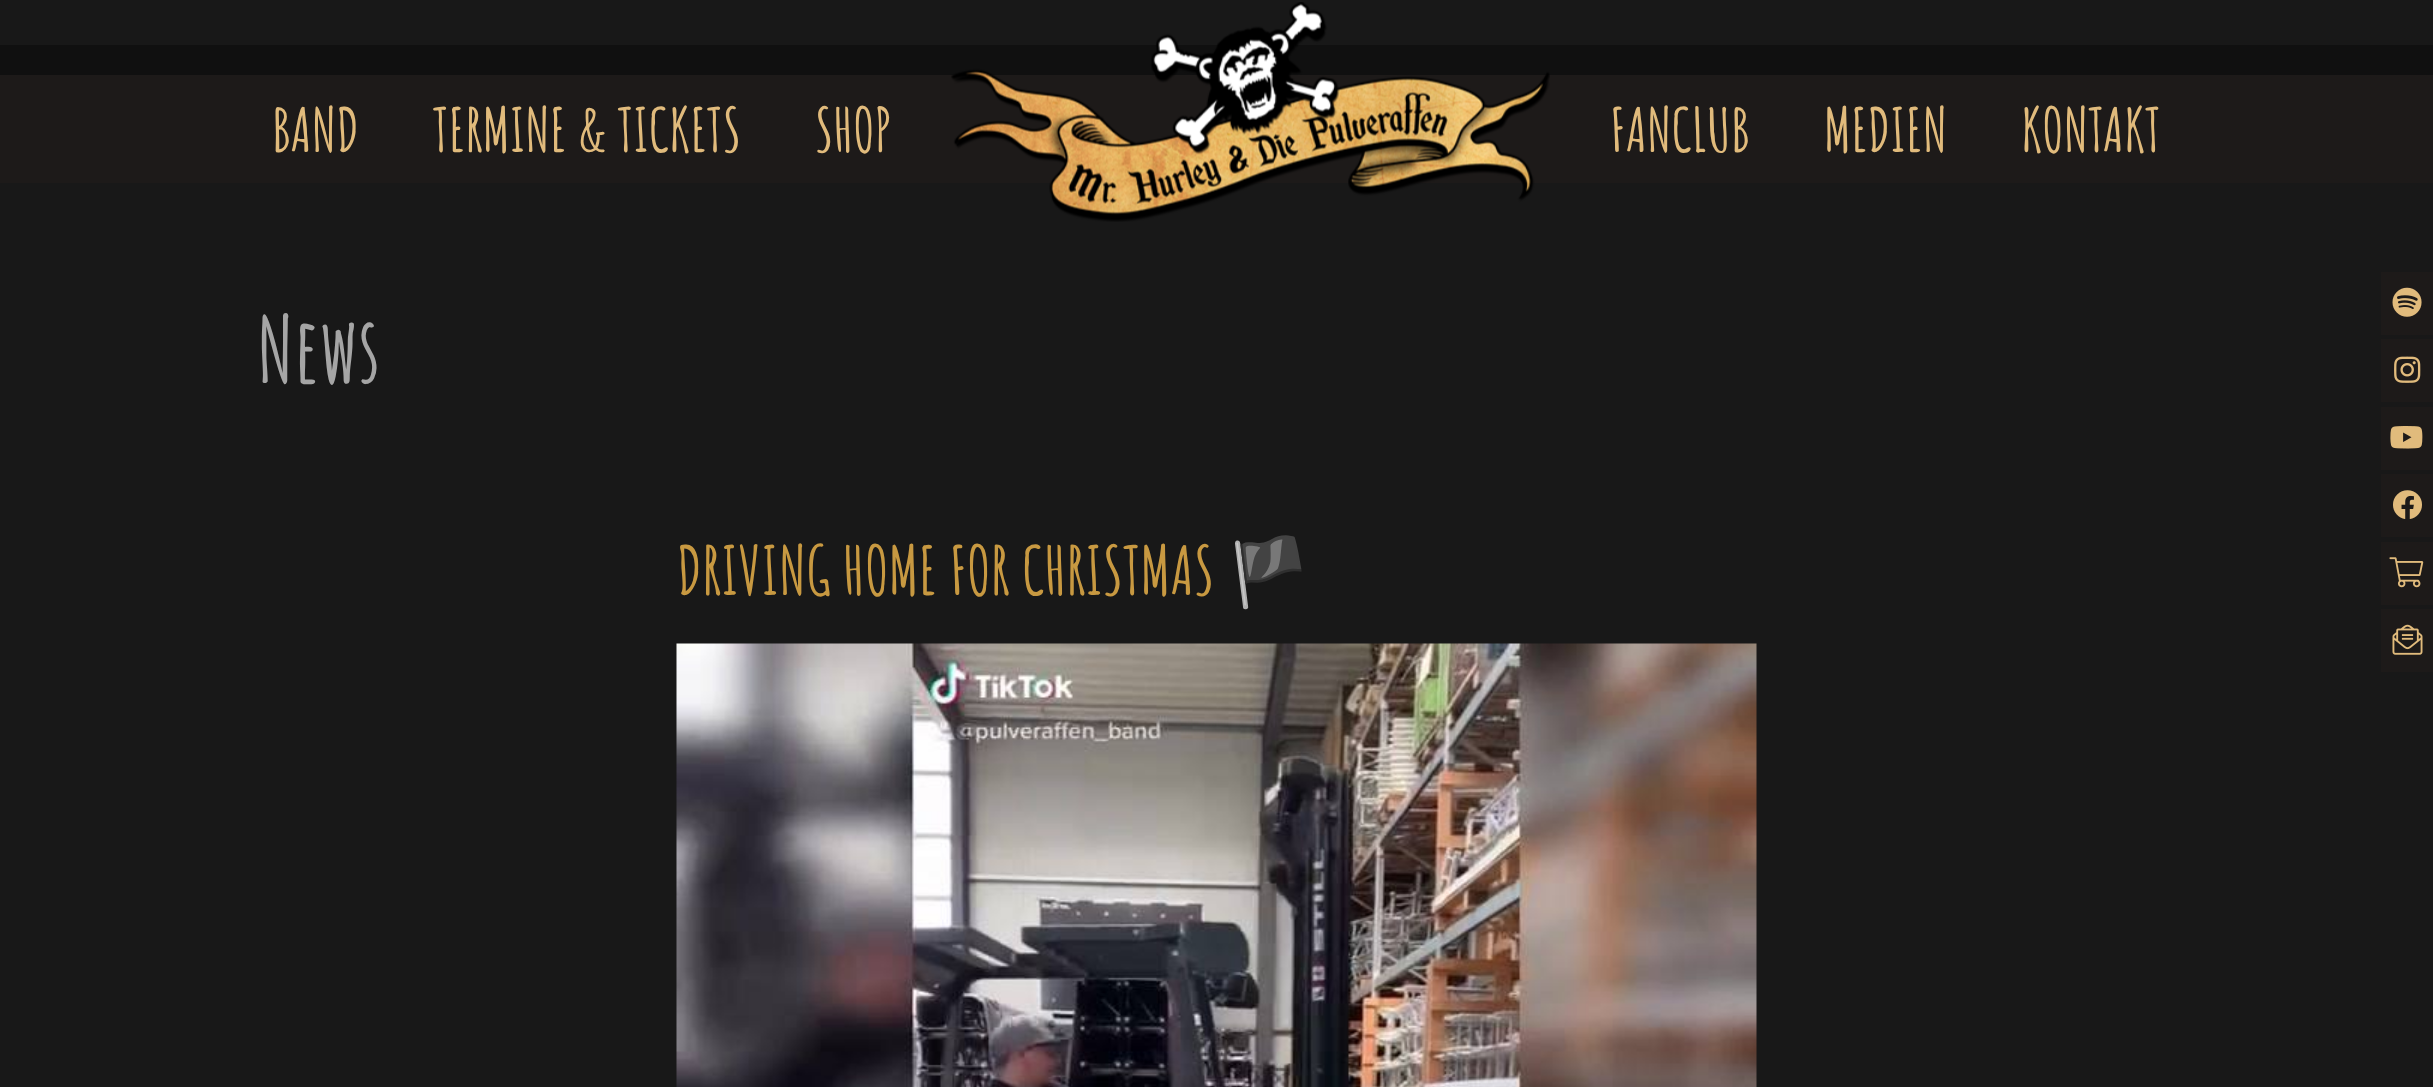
<svg xmlns="http://www.w3.org/2000/svg" width="2433" height="1087" viewBox="0 0 2433 1087">
  <rect width="100%" height="100%" fill="#181818"/>
  <rect x="0" y="45" width="2433" height="30" fill="#101010"/>
  <rect x="0" y="75" width="2433" height="108" fill="#1d1a19"/>
  <text x="272" y="152" font-family="Amatic SC" font-size="60" font-weight="bold" fill="#e1bb7c">BAND</text>
  <text x="433" y="152" font-family="Amatic SC" font-size="60" font-weight="bold" fill="#e1bb7c">TERMINE &amp; TICKETS</text>
  <text x="815" y="152" font-family="Amatic SC" font-size="60" font-weight="bold" fill="#e1bb7c">SHOP</text>
  <image x="951" y="2" width="599" height="220" href="img1.png"/>
  <text x="1610" y="152" font-family="Amatic SC" font-size="60" font-weight="bold" fill="#e1bb7c">FANCLUB</text>
  <text x="1824" y="152" font-family="Amatic SC" font-size="60" font-weight="bold" fill="#e1bb7c">MEDIEN</text>
  <text x="2021" y="152" font-family="Amatic SC" font-size="60" font-weight="bold" fill="#e1bb7c">KONTAKT</text>
  <text x="257" y="383" font-family="Amatic SC" font-size="90" font-weight="bold" fill="#a5a5a5">News</text>
  <text x="677" y="595" font-family="Amatic SC" font-size="66.5" font-weight="bold" fill="#c89941">DRIVING HOME FOR CHRISTMAS</text>
  <text x="1227" y="595" font-family="Noto Color Emoji" font-size="66.5" fill="#c89941">🏴</text>
  <image x="676" y="643" width="1081" height="444" href="img2.png"/>
  <rect x="2381" y="272" width="52" height="63" fill="#1d1a19"/>
  <image x="2392" y="287" width="30" height="30" href="img3.png"/>
  <rect x="2381" y="339" width="52" height="63" fill="#1d1a19"/>
  <image x="2394" y="356" width="27" height="27" href="img4.png"/>
  <rect x="2381" y="407" width="52" height="63" fill="#1d1a19"/>
  <image x="2390" y="426" width="33" height="23" href="img5.png"/>
  <rect x="2381" y="474" width="52" height="63" fill="#1d1a19"/>
  <image x="2393" y="490" width="29" height="29" href="img6.png"/>
  <rect x="2381" y="542" width="52" height="63" fill="#1d1a19"/>
  <image x="2389" y="557" width="35" height="31" href="img7.png"/>
  <rect x="2381" y="609" width="52" height="63" fill="#1d1a19"/>
  <image x="2392" y="624" width="31" height="31" href="img8.png"/>
</svg>
